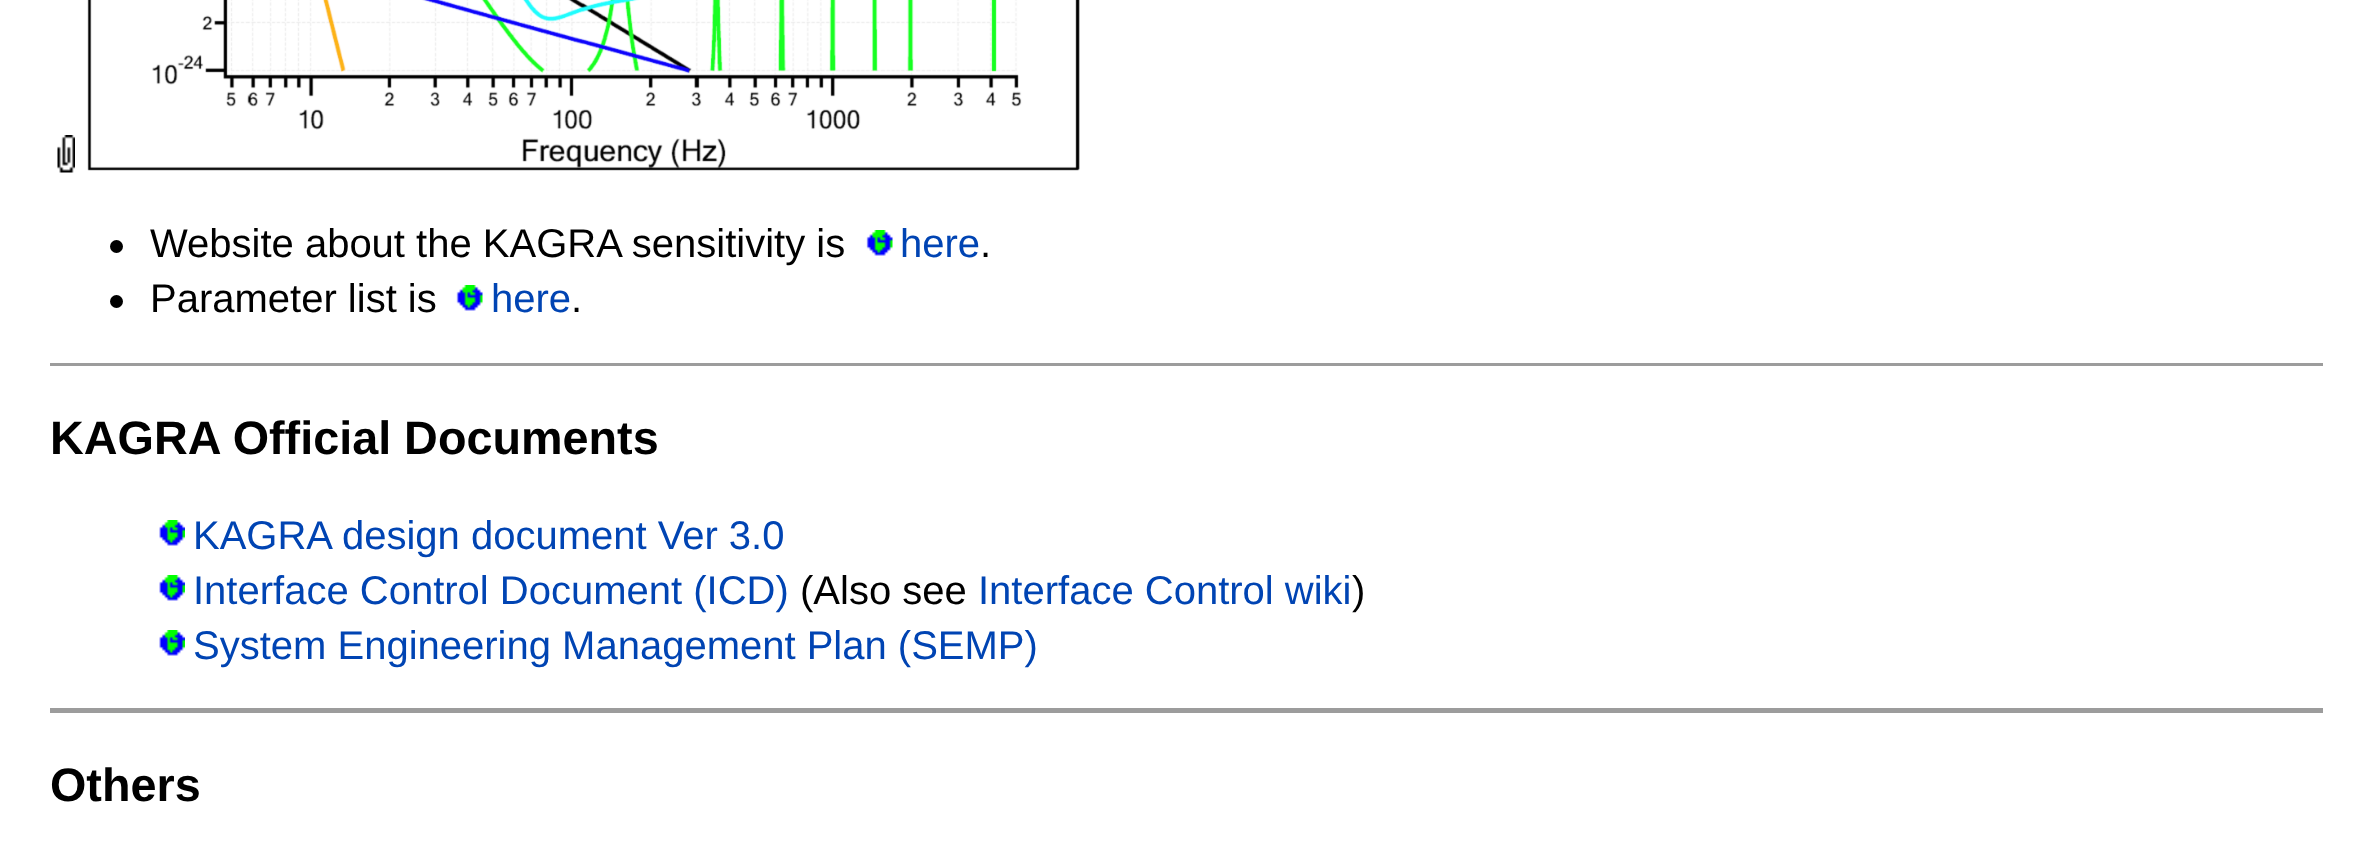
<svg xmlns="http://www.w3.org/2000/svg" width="2372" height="861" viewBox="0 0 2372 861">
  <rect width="100%" height="100%" fill="#ffffff"/>
  <image x="57" y="135" width="18" height="38" href="img1.png"/>
  <image x="87" y="0" width="993" height="171" href="img2.png"/>
  <circle cx="116.5" cy="246.5" r="6.5" fill="#000000"/>
  <text x="150" y="257" font-family="Liberation Sans" font-size="40" fill="#000000">Website about the KAGRA sensitivity is</text>
  <image x="866" y="230" width="27" height="26" href="img3.png"/>
  <text x="900" y="257" font-family="Liberation Sans" font-size="40" fill="#0044b3">here</text>
  <text x="980" y="257" font-family="Liberation Sans" font-size="40" fill="#000000">.</text>
  <circle cx="116.5" cy="301.5" r="6.5" fill="#000000"/>
  <text x="150" y="312" font-family="Liberation Sans" font-size="40" fill="#000000">Parameter list is</text>
  <image x="456" y="285" width="27" height="26" href="img4.png"/>
  <text x="491" y="312" font-family="Liberation Sans" font-size="40" fill="#0044b3">here</text>
  <text x="571" y="312" font-family="Liberation Sans" font-size="40" fill="#000000">.</text>
  <rect x="50" y="363" width="2273" height="3" fill="#9c9c9c"/>
  <text x="50" y="454" font-family="Liberation Sans" font-size="46.75" font-weight="bold" fill="#000000">KAGRA Official Documents</text>
  <image x="159" y="520" width="26" height="26" href="img5.png"/>
  <text x="193" y="549" font-family="Liberation Sans" font-size="40" fill="#0044b3">KAGRA design document Ver 3.0</text>
  <image x="159" y="575" width="26" height="26" href="img5.png"/>
  <text x="193" y="604" font-family="Liberation Sans" font-size="40" fill="#0044b3">Interface Control Document (ICD)</text>
  <text x="800" y="604" font-family="Liberation Sans" font-size="40" fill="#000000">(Also see</text>
  <text x="978" y="604" font-family="Liberation Sans" font-size="40" fill="#0044b3">Interface Control wiki</text>
  <text x="1352" y="604" font-family="Liberation Sans" font-size="40" fill="#000000">)</text>
  <image x="159" y="630" width="26" height="26" href="img5.png"/>
  <text x="193" y="659" font-family="Liberation Sans" font-size="40" fill="#0044b3">System Engineering Management Plan (SEMP)</text>
  <rect x="50" y="708" width="2273" height="5" fill="#9c9c9c"/>
  <text x="50" y="801" font-family="Liberation Sans" font-size="46.75" font-weight="bold" fill="#000000">Others</text>
</svg>
